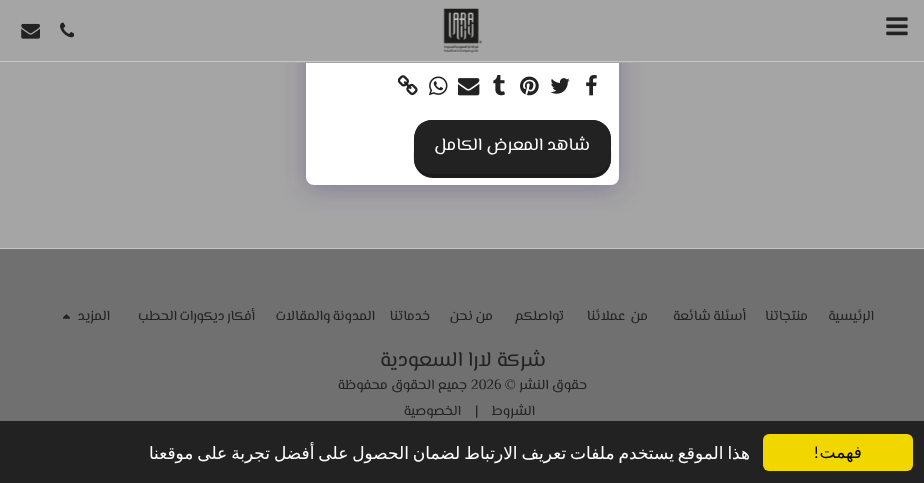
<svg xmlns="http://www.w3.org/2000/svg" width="924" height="483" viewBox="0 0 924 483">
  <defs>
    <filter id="blur1" x="-50%" y="-200%" width="200%" height="500%"><feGaussianBlur stdDeviation="12.5"/></filter>
  </defs>
  <rect width="100%" height="100%" fill="#707070"/>
  <rect x="0" y="63" width="924" height="185" fill="#a5a5a5"/>
  <rect x="306" y="-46" width="313" height="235" rx="8" fill="#4d3f7a" fill-opacity="0.4" filter="url(#blur1)"/>
  <rect x="306" y="-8" width="313" height="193" rx="8" fill="#ffffff"/>
  <rect x="0" y="0" width="924" height="63" fill="#a5a5a5"/>
  <rect x="0" y="61" width="924" height="1" fill="#c7c5c5"/>
  <image x="886" y="17" width="22" height="19" href="img1.png"/>
  <image x="443" y="8" width="39" height="45" href="img2.png"/>
  <image x="60" y="22" width="14" height="16" href="img3.png"/>
  <image x="21" y="23" width="19" height="16" href="img4.png"/>
  <image x="586" y="75" width="11" height="21" href="img5.png"/>
  <image x="550" y="78" width="20" height="16" href="img6.png"/>
  <image x="520" y="76" width="19" height="20" href="img7.png"/>
  <image x="493" y="75" width="12" height="21" href="img8.png"/>
  <image x="458" y="78" width="22" height="18" href="img9.png"/>
  <image x="429" y="76" width="19" height="20" href="img10.png"/>
  <image x="398" y="75" width="20" height="21" href="img11.png"/>
  <rect x="414" y="120" width="197" height="58" rx="19" fill="#222222"/>
  <path d="M432 120C427 120 422 122 419 125L420 126C423 123 427 121 432 121H592C597 121 602 123 605 126H606C602 122 598 120 592 120Z" fill="#222222"/>
  <path d="M606 126C612 132 611 141 611 149C611 156 612 163 608 169V166C611 161 610 155 610 149C610 141 611 133 605 126Z" fill="#222222"/>
  <path d="M428 178C423 176 419 173 417 169V166C420 171 426 174 432 174H592C599 174 604 171 608 166V169C606 173 602 176 596 178Z" fill="#000000" fill-opacity="0.2"/>
  <path d="M419 125C413 132 414 141 414 149C414 156 413 163 417 169V166C414 161 415 155 415 149C415 141 414 133 420 126Z" fill="#222222"/>
  <text x="590" y="150" font-family="El Messiri" font-size="17.5" direction="rtl" fill="#ffffff">شاهد المعرض الكامل</text>
  <rect x="0" y="248" width="924" height="1" fill="#c7c5c5"/>
  <text x="874" y="320" font-family="El Messiri" font-size="14" letter-spacing="0.6" direction="rtl" fill="#222222">الرئيسية</text>
  <text x="808" y="320" font-family="El Messiri" font-size="14" letter-spacing="0.6" direction="rtl" fill="#222222">منتجاتنا</text>
  <text x="746" y="320" word-spacing="-1" font-family="El Messiri" font-size="14" letter-spacing="0.6" direction="rtl" fill="#222222">أسئلة شائعة</text>
  <text x="648" y="320" word-spacing="-1" font-family="El Messiri" font-size="14" letter-spacing="0.6" direction="rtl" fill="#222222" xml:space="preserve">من  عملائنا</text>
  <text x="564" y="320" font-family="El Messiri" font-size="14" letter-spacing="0.6" direction="rtl" fill="#222222">تواصلكم</text>
  <text x="493" y="320" word-spacing="-1" font-family="El Messiri" font-size="14" letter-spacing="0.6" direction="rtl" fill="#222222">من نحن</text>
  <text x="430" y="320" font-family="El Messiri" font-size="14" letter-spacing="0.6" direction="rtl" fill="#222222">خدماتنا</text>
  <text x="375" y="320" word-spacing="-1" font-family="El Messiri" font-size="14" letter-spacing="0.6" direction="rtl" fill="#222222">المدونة والمقالات</text>
  <text x="255" y="320" word-spacing="-1" font-family="El Messiri" font-size="14" letter-spacing="0.6" direction="rtl" fill="#222222">أفكار ديكورات الحطب</text>
  <text x="110" y="320" font-family="El Messiri" font-size="14" letter-spacing="0.6" direction="rtl" fill="#222222">المزيد</text>
  <image x="63" y="314" width="7" height="5" href="img12.png"/>
  <text x="546" y="366" font-family="El Messiri" font-size="21" direction="rtl" fill="#222222">شركة لارا السعودية</text>
  <text x="587" y="389" font-family="El Messiri" font-size="14" direction="rtl" fill="#222222">حقوق النشر ©</text>
  <text x="471" y="389" font-family="El Messiri" font-size="14" fill="#222222">2026</text>
  <text x="467" y="389" font-family="El Messiri" font-size="14" direction="rtl" fill="#222222">جميع الحقوق محفوظة</text>
  <text x="535" y="415" font-family="El Messiri" font-size="14" direction="rtl" fill="#222222">الشروط</text>
  <text x="475" y="415" font-family="El Messiri" font-size="14" fill="#222222">|</text>
  <text x="461" y="415" font-family="El Messiri" font-size="14" direction="rtl" fill="#222222">الخصوصية</text>
  <rect x="0" y="421" width="924" height="62" fill="#222222"/>
  <rect x="763" y="434" width="150" height="37" rx="6" fill="#f1d600"/>
  <text x="862" y="458" font-family="DejaVu Sans" font-size="17" direction="rtl" fill="#000000">فهمت</text>
  <text x="819" y="458" font-family="Carlito" font-size="17" direction="rtl" fill="#000000">!</text>
  <text x="750" y="459" word-spacing="-1.5" font-family="DejaVu Sans" font-size="17" direction="rtl" fill="#ffffff">هذا الموقع يستخدم ملفات تعريف الارتباط لضمان الحصول على أفضل تجربة على موقعنا</text>
</svg>
